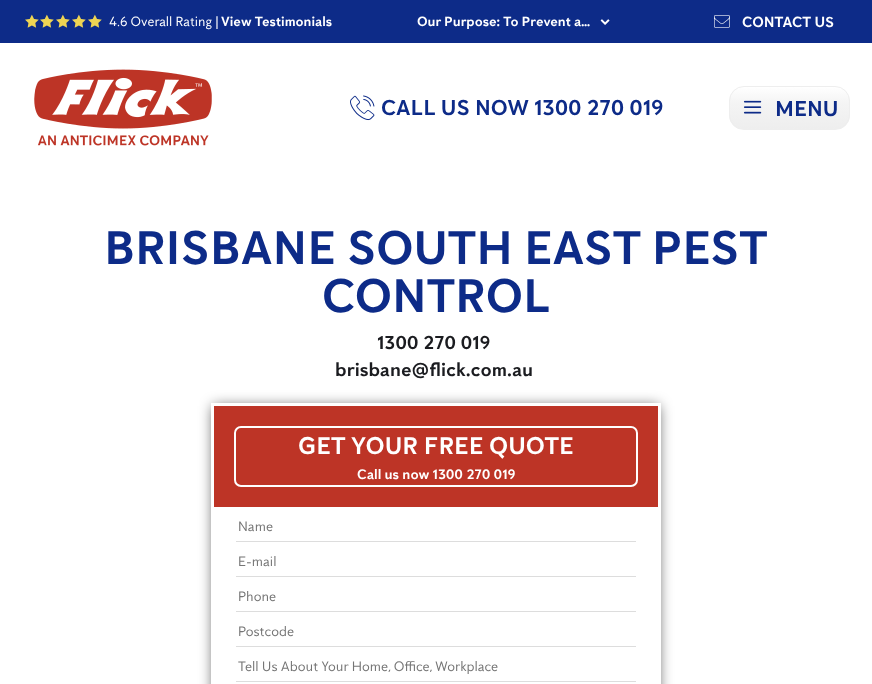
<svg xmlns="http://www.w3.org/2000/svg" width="872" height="684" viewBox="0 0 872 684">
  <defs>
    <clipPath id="clip1"><rect x="729" y="86" width="121" height="44" rx="15"/></clipPath>
    <linearGradient id="g1" gradientUnits="userSpaceOnUse" x1="790" y1="87" x2="790" y2="129"><stop offset="0" stop-color="#ffffff"/><stop offset="0.38" stop-color="#f4f4f4"/><stop offset="1" stop-color="#eeeeee"/></linearGradient>
    <clipPath id="clip2"><path d="M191 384H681V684H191ZM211 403H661V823H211Z" clip-rule="evenodd"/></clipPath>
    <filter id="blur1" x="-50%" y="-200%" width="200%" height="500%"><feGaussianBlur stdDeviation="7"/></filter>
  </defs>
  <rect width="100%" height="100%" fill="#ffffff"/>
  <rect x="0" y="0" width="872" height="43" fill="#0d2b88"/>
  <image x="25" y="14" width="14" height="14" href="img1.png"/>
  <image x="40" y="14" width="14" height="14" href="img1.png"/>
  <image x="56" y="14" width="14" height="14" href="img1.png"/>
  <image x="72" y="14" width="14" height="14" href="img1.png"/>
  <image x="88" y="14" width="14" height="14" href="img1.png"/>
  <text x="109" y="26" font-family="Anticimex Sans" font-size="13.75" fill="#ffffff">4.6 Overall Rating |</text>
  <text x="221" y="26" font-family="Anticimex Sans" font-size="13.75" font-weight="bold" fill="#ffffff">View Testimonials</text>
  <text x="417" y="26" font-family="Anticimex Sans" font-size="13.75" font-weight="bold" fill="#ffffff">Our Purpose: To Prevent a…</text>
  <image x="600" y="19" width="10" height="6" href="img2.png"/>
  <image x="714" y="15" width="16" height="13" href="img3.png"/>
  <text x="742" y="27" font-family="Anticimex Sans" font-size="15" font-weight="bold" fill="#ffffff">CONTACT US</text>
  <image x="34" y="69" width="178" height="77" href="img4.png"/>
  <image x="350" y="95" width="25" height="26" href="img5.png"/>
  <text x="381" y="115" font-family="Anticimex Sans" font-size="22" font-weight="bold" fill="#0d2b88">CALL US NOW 1300 270 019</text>
  <g clip-path="url(#clip1)">
    <rect x="729" y="87" width="121" height="42" fill="url(#g1)"/>
  </g>
  <rect x="729.5" y="86.5" width="120" height="43" rx="14.5" fill="none" stroke="#eeeeee"/>
  <image x="743" y="100" width="19" height="14" href="img6.png"/>
  <text x="775" y="116" font-family="Anticimex Sans" font-size="22" font-weight="bold" fill="#0d2b88">MENU</text>
  <text x="104" y="264" font-family="Anticimex Sans" font-size="48.25" font-weight="bold" fill="#0d2b88">BRISBANE SOUTH EAST PEST</text>
  <text x="322" y="312" font-family="Anticimex Sans" font-size="48.25" font-weight="bold" fill="#0d2b88">CONTROL</text>
  <text x="377" y="349" font-family="Anticimex Sans" font-size="19.25" font-weight="bold" fill="#1b1c20">1300 270 019</text>
  <text x="335" y="376" font-family="Anticimex Sans" font-size="19.25" font-weight="bold" fill="#1b1c20">brisbane@flick.com.au</text>
  <g clip-path="url(#clip2)">
    <rect x="213" y="406" width="446" height="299" fill="#000000" fill-opacity="0.64" filter="url(#blur1)"/>
  </g>
  <rect x="214" y="406" width="444" height="101" fill="#bd3426"/>
  <rect x="235" y="427" width="402" height="59" rx="6" fill="none" stroke="#ffffff" stroke-width="2"/>
  <text x="298" y="454" font-family="Anticimex Sans" font-size="24.75" font-weight="bold" fill="#ffffff">GET YOUR FREE QUOTE</text>
  <text x="357" y="479" font-family="Anticimex Sans" font-size="14.1" font-weight="bold" fill="#ffffff">Call us now 1300 270 019</text>
  <rect x="236" y="541" width="400" height="1" fill="#dddddd"/>
  <text x="238" y="531" font-family="Anticimex Sans" font-size="14" fill="#757575">Name</text>
  <rect x="236" y="576" width="400" height="1" fill="#dddddd"/>
  <text x="238" y="566" font-family="Anticimex Sans" font-size="14" fill="#757575">E-mail</text>
  <rect x="236" y="611" width="400" height="1" fill="#dddddd"/>
  <text x="238" y="601" font-family="Anticimex Sans" font-size="14" fill="#757575">Phone</text>
  <rect x="236" y="646" width="400" height="1" fill="#dddddd"/>
  <text x="238" y="636" font-family="Anticimex Sans" font-size="14" fill="#757575">Postcode</text>
  <rect x="236" y="681" width="400" height="1" fill="#dddddd"/>
  <text x="238" y="671" font-family="Anticimex Sans" font-size="14" fill="#757575">Tell Us About Your Home, Office, Workplace</text>
</svg>
